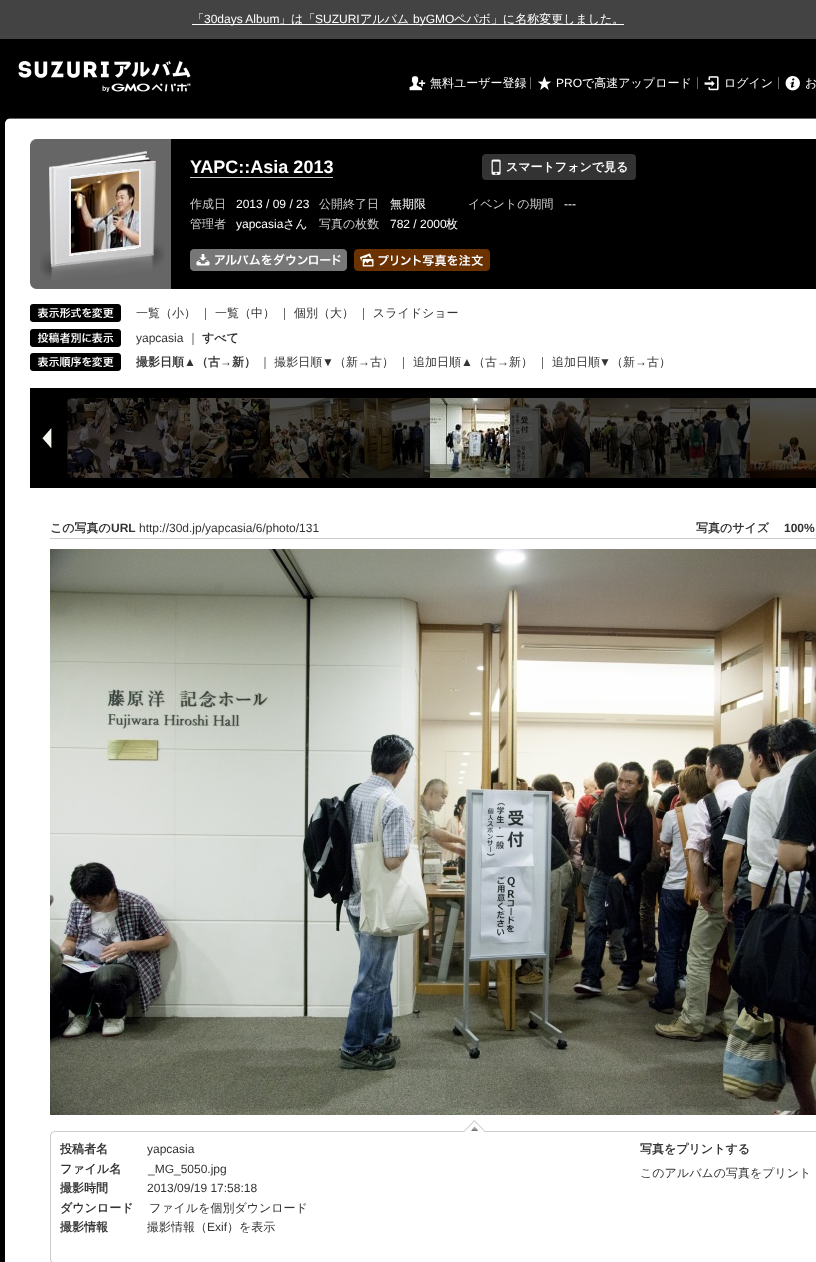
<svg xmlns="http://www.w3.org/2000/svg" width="816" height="1262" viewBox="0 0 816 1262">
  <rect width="100%" height="100%" fill="#434343"/>
  <text x="192" y="23" font-family="WenQuanYi Zen Hei" font-size="12" font-weight="500" fill="#ffffff">「</text>
  <rect x="192" y="24" width="432" height="1" fill="#ffffff"/>
  <text x="204" y="23" font-family="Liberation Sans" font-size="12" fill="#ffffff">30days Album</text>
  <text x="279" y="23" font-family="WenQuanYi Zen Hei" font-size="12" font-weight="500" fill="#ffffff">」は「</text>
  <text x="315" y="23" font-family="Liberation Sans" font-size="12" fill="#ffffff">SUZURI</text>
  <text x="360" y="23" font-family="WenQuanYi Zen Hei" font-size="12" font-weight="500" fill="#ffffff">アルバム</text>
  <text x="413" y="23" font-family="Liberation Sans" font-size="12" fill="#ffffff">byGMO</text>
  <text x="454" y="23" font-family="WenQuanYi Zen Hei" font-size="12" font-weight="500" fill="#ffffff">ペパボ」に名称変更しました。</text>
  <rect x="0" y="39" width="816" height="1223" fill="#000000"/>
  <image x="18" y="61" width="173" height="31" href="img1.png"/>
  <image x="409" y="76" width="17" height="15" href="img2.png"/>
  <text x="430" y="87" font-family="WenQuanYi Zen Hei" font-size="12" font-weight="500" fill="#ffffff">無料ユーザー登録</text>
  <rect x="530" y="77" width="1" height="12" fill="#666666"/>
  <image x="537" y="76" width="15" height="14" href="img3.png"/>
  <text x="556" y="87" font-family="Liberation Sans" font-size="12" fill="#ffffff">PRO</text>
  <text x="582" y="87" font-family="WenQuanYi Zen Hei" font-size="12" font-weight="500" fill="#ffffff">で高速アップロード</text>
  <rect x="697" y="77" width="1" height="12" fill="#666666"/>
  <image x="704" y="76" width="15" height="15" href="img4.png"/>
  <text x="724" y="87" font-family="WenQuanYi Zen Hei" font-size="12" font-weight="500" fill="#ffffff">ログイン</text>
  <rect x="778" y="77" width="1" height="12" fill="#666666"/>
  <image x="785" y="76" width="15" height="15" href="img5.png"/>
  <text x="805" y="87" font-family="WenQuanYi Zen Hei" font-size="12" font-weight="500" fill="#ffffff">お</text>
  <image x="5" y="118" width="811" height="6" href="img6.png"/>
  <rect x="5" y="124" width="811" height="1138" fill="#ffffff"/>
  <image x="30" y="139" width="786" height="150" href="img7.png"/>
  <image x="30" y="139" width="7" height="7" href="img8.png"/>
  <image x="30" y="282" width="7" height="7" href="img9.png"/>
  <image x="40" y="151" width="125" height="130" href="img10.png"/>
  <text x="190" y="173" font-family="Liberation Sans" font-size="18" font-weight="bold" fill="#ffffff">YAPC::Asia 2013</text>
  <rect x="190" y="177" width="143" height="1" fill="#cccccc"/>
  <rect x="482" y="154" width="154" height="26" rx="4" fill="#333333"/>
  <image x="491" y="159" width="10" height="16" href="img11.png"/>
  <text x="506" y="171" font-family="WenQuanYi Zen Hei" font-size="12" font-weight="bold" fill="#ffffff">スマートフォンで見る</text>
  <text x="190" y="208" font-family="WenQuanYi Zen Hei" font-size="12" font-weight="500" fill="#cccccc">作成日</text>
  <text x="236" y="208" font-family="Liberation Sans" font-size="12" fill="#ffffff">2013 / 09 / 23</text>
  <text x="319" y="208" font-family="WenQuanYi Zen Hei" font-size="12" font-weight="500" fill="#cccccc">公開終了日</text>
  <text x="390" y="208" font-family="WenQuanYi Zen Hei" font-size="12" font-weight="500" fill="#ffffff">無期限</text>
  <text x="468" y="208" font-family="WenQuanYi Zen Hei" font-size="12" font-weight="500" fill="#cccccc">イベントの期間</text>
  <text x="564" y="208" font-family="Liberation Sans" font-size="12" fill="#ffffff">---</text>
  <text x="190" y="228" font-family="WenQuanYi Zen Hei" font-size="12" font-weight="500" fill="#cccccc">管理者</text>
  <text x="236" y="228" font-family="Liberation Sans" font-size="12" fill="#ffffff">yapcasia</text>
  <text x="283" y="228" font-family="WenQuanYi Zen Hei" font-size="12" font-weight="500" fill="#ffffff">さん</text>
  <text x="319" y="228" font-family="WenQuanYi Zen Hei" font-size="12" font-weight="500" fill="#cccccc">写真の枚数</text>
  <text x="390" y="228" font-family="Liberation Sans" font-size="12" fill="#ffffff">782 / 2000</text>
  <text x="446" y="228" font-family="WenQuanYi Zen Hei" font-size="12" font-weight="500" fill="#ffffff">枚</text>
  <image x="190" y="249" width="157" height="22" href="img12.png"/>
  <image x="354" y="249" width="136" height="22" href="img13.png"/>
  <image x="30" y="304" width="91" height="18" href="img14.png"/>
  <text x="136" y="317" font-family="WenQuanYi Zen Hei" font-size="12" font-weight="500" fill="#333333">一覧（小） ｜ 一覧（中） ｜ 個別（大） ｜ スライドショー</text>
  <image x="30" y="329" width="91" height="18" href="img15.png"/>
  <text x="136" y="342" font-family="Liberation Sans" font-size="12" fill="#333333">yapcasia</text>
  <text x="187" y="342" font-family="WenQuanYi Zen Hei" font-size="12" font-weight="500" fill="#333333">｜</text>
  <text x="202" y="342" font-family="WenQuanYi Zen Hei" font-size="12" font-weight="bold" fill="#333333">すべて</text>
  <image x="30" y="353" width="91" height="18" href="img16.png"/>
  <text x="136" y="366" font-family="WenQuanYi Zen Hei" font-size="12" font-weight="bold" fill="#333333">撮影日順</text>
  <text x="184" y="366" font-family="Liberation Sans" font-size="12" font-weight="bold" fill="#333333">▲</text>
  <text x="196" y="366" font-family="WenQuanYi Zen Hei" font-size="12" font-weight="bold" fill="#333333">（古</text>
  <text x="220" y="366" font-family="Liberation Sans" font-size="12" font-weight="bold" fill="#333333">→</text>
  <text x="232" y="366" font-family="WenQuanYi Zen Hei" font-size="12" font-weight="bold" fill="#333333">新）</text>
  <text x="259" y="366" font-family="WenQuanYi Zen Hei" font-size="12" font-weight="500" fill="#333333">｜ 撮影日順</text>
  <text x="322" y="366" font-family="Liberation Sans" font-size="12" fill="#333333">▼</text>
  <text x="334" y="366" font-family="WenQuanYi Zen Hei" font-size="12" font-weight="500" fill="#333333">（新</text>
  <text x="358" y="366" font-family="Liberation Sans" font-size="12" fill="#333333">→</text>
  <text x="370" y="366" font-family="WenQuanYi Zen Hei" font-size="12" font-weight="500" fill="#333333">古） ｜ 追加日順</text>
  <text x="461" y="366" font-family="Liberation Sans" font-size="12" fill="#333333">▲</text>
  <text x="473" y="366" font-family="WenQuanYi Zen Hei" font-size="12" font-weight="500" fill="#333333">（古</text>
  <text x="497" y="366" font-family="Liberation Sans" font-size="12" fill="#333333">→</text>
  <text x="509" y="366" font-family="WenQuanYi Zen Hei" font-size="12" font-weight="500" fill="#333333">新） ｜ 追加日順</text>
  <text x="599" y="366" font-family="Liberation Sans" font-size="12" fill="#333333">▼</text>
  <text x="611" y="366" font-family="WenQuanYi Zen Hei" font-size="12" font-weight="500" fill="#333333">（新</text>
  <text x="635" y="366" font-family="Liberation Sans" font-size="12" fill="#333333">→</text>
  <text x="647" y="366" font-family="WenQuanYi Zen Hei" font-size="12" font-weight="500" fill="#333333">古）</text>
  <rect x="30" y="388" width="786" height="100" fill="#000000"/>
  <image x="67" y="398" width="43" height="80" href="img18.png"/>
  <image x="30" y="398" width="39" height="80" href="img17.png"/>
  <image x="110" y="398" width="80" height="80" href="img19.png"/>
  <image x="190" y="398" width="80" height="80" href="img20.png"/>
  <image x="270" y="398" width="80" height="80" href="img21.png"/>
  <image x="350" y="398" width="80" height="80" href="img22.png"/>
  <image x="430" y="398" width="80" height="80" href="img23.png"/>
  <image x="510" y="398" width="80" height="80" href="img24.png"/>
  <image x="590" y="398" width="80" height="80" href="img25.png"/>
  <image x="670" y="398" width="80" height="80" href="img26.png"/>
  <image x="750" y="398" width="66" height="80" href="img27.png"/>
  <rect x="50" y="538" width="766" height="1" fill="#cccccc"/>
  <text x="50" y="532" font-family="WenQuanYi Zen Hei" font-size="12" font-weight="bold" fill="#333333">この写真の</text>
  <text x="111" y="532" font-family="Liberation Sans" font-size="12" font-weight="bold" fill="#333333">URL</text>
  <text x="139" y="532" font-family="Liberation Sans" font-size="12" fill="#333333">http://30d.jp/yapcasia/6/photo/131</text>
  <text x="696" y="532" font-family="WenQuanYi Zen Hei" font-size="12" font-weight="bold" fill="#333333">写真のサイズ</text>
  <text x="784" y="532" font-family="Liberation Sans" font-size="12" font-weight="bold" fill="#333333">100%</text>
  <image x="50" y="549" width="766" height="566" href="img28.png"/>
  <rect x="50" y="1135" width="1" height="127" fill="#cccccc"/>
  <image x="50" y="1120" width="766" height="15" href="img29.png"/>
  <image x="50" y="1260" width="3" height="2" href="img30.png"/>
  <text x="60" y="1153" font-family="WenQuanYi Zen Hei" font-size="12" font-weight="bold" fill="#333333">投稿者名</text>
  <text x="147" y="1153" font-family="Liberation Sans" font-size="12" fill="#333333">yapcasia</text>
  <text x="60" y="1173" font-family="WenQuanYi Zen Hei" font-size="12" font-weight="bold" fill="#333333">ファイル名</text>
  <text x="148" y="1173" font-family="Liberation Sans" font-size="12" fill="#333333">_MG_5050.jpg</text>
  <text x="60" y="1192" font-family="WenQuanYi Zen Hei" font-size="12" font-weight="bold" fill="#333333">撮影時間</text>
  <text x="147" y="1192" font-family="Liberation Sans" font-size="12" fill="#333333">2013/09/19 17:58:18</text>
  <text x="60" y="1212" font-family="WenQuanYi Zen Hei" font-size="12" font-weight="bold" fill="#333333">ダウンロード</text>
  <text x="149" y="1212" font-family="WenQuanYi Zen Hei" font-size="12" font-weight="500" fill="#333333">ファイルを個別ダウンロード</text>
  <text x="60" y="1231" font-family="WenQuanYi Zen Hei" font-size="12" font-weight="bold" fill="#333333">撮影情報</text>
  <text x="147" y="1231" font-family="WenQuanYi Zen Hei" font-size="12" font-weight="500" fill="#333333">撮影情報（</text>
  <text x="207" y="1231" font-family="Liberation Sans" font-size="12" fill="#333333">Exif</text>
  <text x="227" y="1231" font-family="WenQuanYi Zen Hei" font-size="12" font-weight="500" fill="#333333">）を表示</text>
  <text x="640" y="1153" font-family="WenQuanYi Zen Hei" font-size="12" font-weight="bold" fill="#333333">写真をプリントする</text>
  <text x="640" y="1177" font-family="WenQuanYi Zen Hei" font-size="12" font-weight="500" fill="#333333">このアルバムの写真をプリント</text>
</svg>
